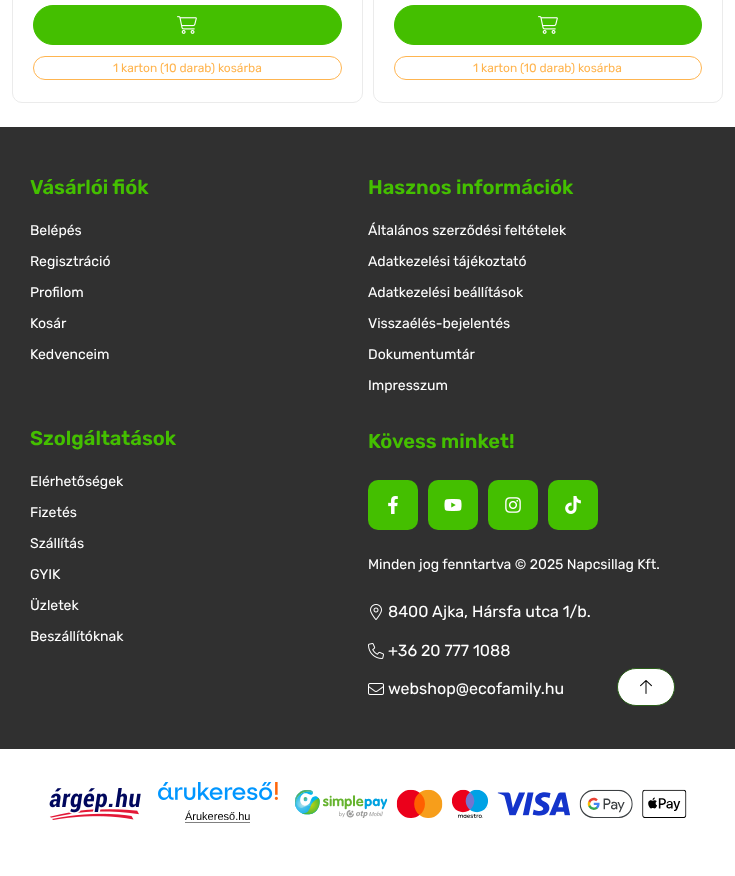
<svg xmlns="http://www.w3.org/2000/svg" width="735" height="876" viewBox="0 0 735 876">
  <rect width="100%" height="100%" fill="#ffffff"/>
  <rect x="12.5" y="-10.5" width="350" height="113" rx="9.5" fill="none" stroke="#ebebeb"/>
  <rect x="33.5" y="5.5" width="308" height="39" rx="19.5" fill="#44bf00" stroke="#44bf00"/>
  <image x="177" y="16" width="20" height="18" href="img1.png"/>
  <rect x="33.5" y="56.5" width="308" height="23" rx="11.5" fill="none" stroke="#ffb550"/>
  <text x="113" y="72" font-family="Rubik" font-size="12" fill="#ffb550">1 karton (10 darab) kosárba</text>
  <rect x="373.5" y="-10.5" width="349" height="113" rx="9.5" fill="none" stroke="#ebebeb"/>
  <rect x="394.5" y="5.5" width="307" height="39" rx="19.5" fill="#44bf00" stroke="#44bf00"/>
  <image x="538" y="16" width="20" height="18" href="img1.png"/>
  <rect x="394.5" y="56.5" width="307" height="23" rx="11.5" fill="none" stroke="#ffb550"/>
  <text x="473" y="72" font-family="Rubik" font-size="12" fill="#ffb550">1 karton (10 darab) kosárba</text>
  <rect x="0" y="127" width="735" height="622" fill="#303030"/>
  <text x="30" y="194" font-family="Rubik" font-size="20" font-weight="600" fill="#44bf00">Vásárlói fiók</text>
  <text x="30" y="235" font-family="Rubik" font-size="14" fill="#ffffff">Belépés</text>
  <text x="30" y="266" font-family="Rubik" font-size="14" fill="#ffffff">Regisztráció</text>
  <text x="30" y="297" font-family="Rubik" font-size="14" fill="#ffffff">Profilom</text>
  <text x="30" y="328" font-family="Rubik" font-size="14" fill="#ffffff">Kosár</text>
  <text x="30" y="359" font-family="Rubik" font-size="14" fill="#ffffff">Kedvenceim</text>
  <text x="368" y="194" font-family="Rubik" font-size="20" font-weight="600" fill="#44bf00">Hasznos információk</text>
  <text x="368" y="235" font-family="Rubik" font-size="14" fill="#ffffff">Általános szerződési feltételek</text>
  <text x="368" y="266" font-family="Rubik" font-size="14" fill="#ffffff">Adatkezelési tájékoztató</text>
  <text x="368" y="297" font-family="Rubik" font-size="14" fill="#ffffff">Adatkezelési beállítások</text>
  <text x="368" y="328" font-family="Rubik" font-size="14" fill="#ffffff">Visszaélés-bejelentés</text>
  <text x="368" y="359" font-family="Rubik" font-size="14" fill="#ffffff">Dokumentumtár</text>
  <text x="368" y="390" font-family="Rubik" font-size="14" fill="#ffffff">Impresszum</text>
  <text x="30" y="445" font-family="Rubik" font-size="20" font-weight="600" fill="#44bf00">Szolgáltatások</text>
  <text x="30" y="486" font-family="Rubik" font-size="14" fill="#ffffff">Elérhetőségek</text>
  <text x="30" y="517" font-family="Rubik" font-size="14" fill="#ffffff">Fizetés</text>
  <text x="30" y="548" font-family="Rubik" font-size="14" fill="#ffffff">Szállítás</text>
  <text x="30" y="579" font-family="Rubik" font-size="14" fill="#ffffff">GYIK</text>
  <text x="30" y="610" font-family="Rubik" font-size="14" fill="#ffffff">Üzletek</text>
  <text x="30" y="641" font-family="Rubik" font-size="14" fill="#ffffff">Beszállítóknak</text>
  <text x="368" y="448" font-family="Rubik" font-size="20" font-weight="600" fill="#44bf00">Kövess minket!</text>
  <rect x="368" y="480" width="50" height="50" rx="10" fill="#44bf00"/>
  <image x="388" y="496" width="10" height="18" href="img2.png"/>
  <rect x="428" y="480" width="50" height="50" rx="10" fill="#44bf00"/>
  <image x="444" y="499" width="18" height="12" href="img3.png"/>
  <rect x="488" y="480" width="50" height="50" rx="10" fill="#44bf00"/>
  <image x="505" y="497" width="16" height="16" href="img4.png"/>
  <rect x="548" y="480" width="50" height="50" rx="10" fill="#44bf00"/>
  <image x="565" y="496" width="16" height="18" href="img5.png"/>
  <text x="368" y="569" font-family="Rubik" font-size="14" fill="#ffffff">Minden jog fenntartva © 2025 Napcsillag Kft.</text>
  <image x="370" y="604" width="12" height="16" href="img6.png"/>
  <text x="388" y="617" font-family="Rubik" font-size="16" fill="#ffffff">8400 Ajka, Hársfa utca 1/b.</text>
  <image x="368" y="643" width="16" height="16" href="img7.png"/>
  <text x="388" y="656" font-family="Rubik" font-size="16" fill="#ffffff">+36 20 777 1088</text>
  <image x="368" y="683" width="16" height="12" href="img8.png"/>
  <text x="388" y="694" font-family="Rubik" font-size="16" fill="#ffffff">webshop@ecofamily.hu</text>
  <rect x="617.5" y="668.5" width="57" height="37" rx="18.5" fill="#ffffff" stroke="#2b5f19"/>
  <image x="640" y="680" width="12" height="14" href="img9.png"/>
  <image x="49" y="788" width="92" height="32" href="img10.png"/>
  <image x="158" y="782" width="120" height="19" href="img11.png"/>
  <text x="185" y="820" font-family="Liberation Sans" font-size="11" fill="#000000">Árukereső.hu</text>
  <rect x="185" y="822" width="65" height="1" fill="#808080"/>
  <image x="295" y="789" width="392" height="29" href="img12.png"/>
</svg>
